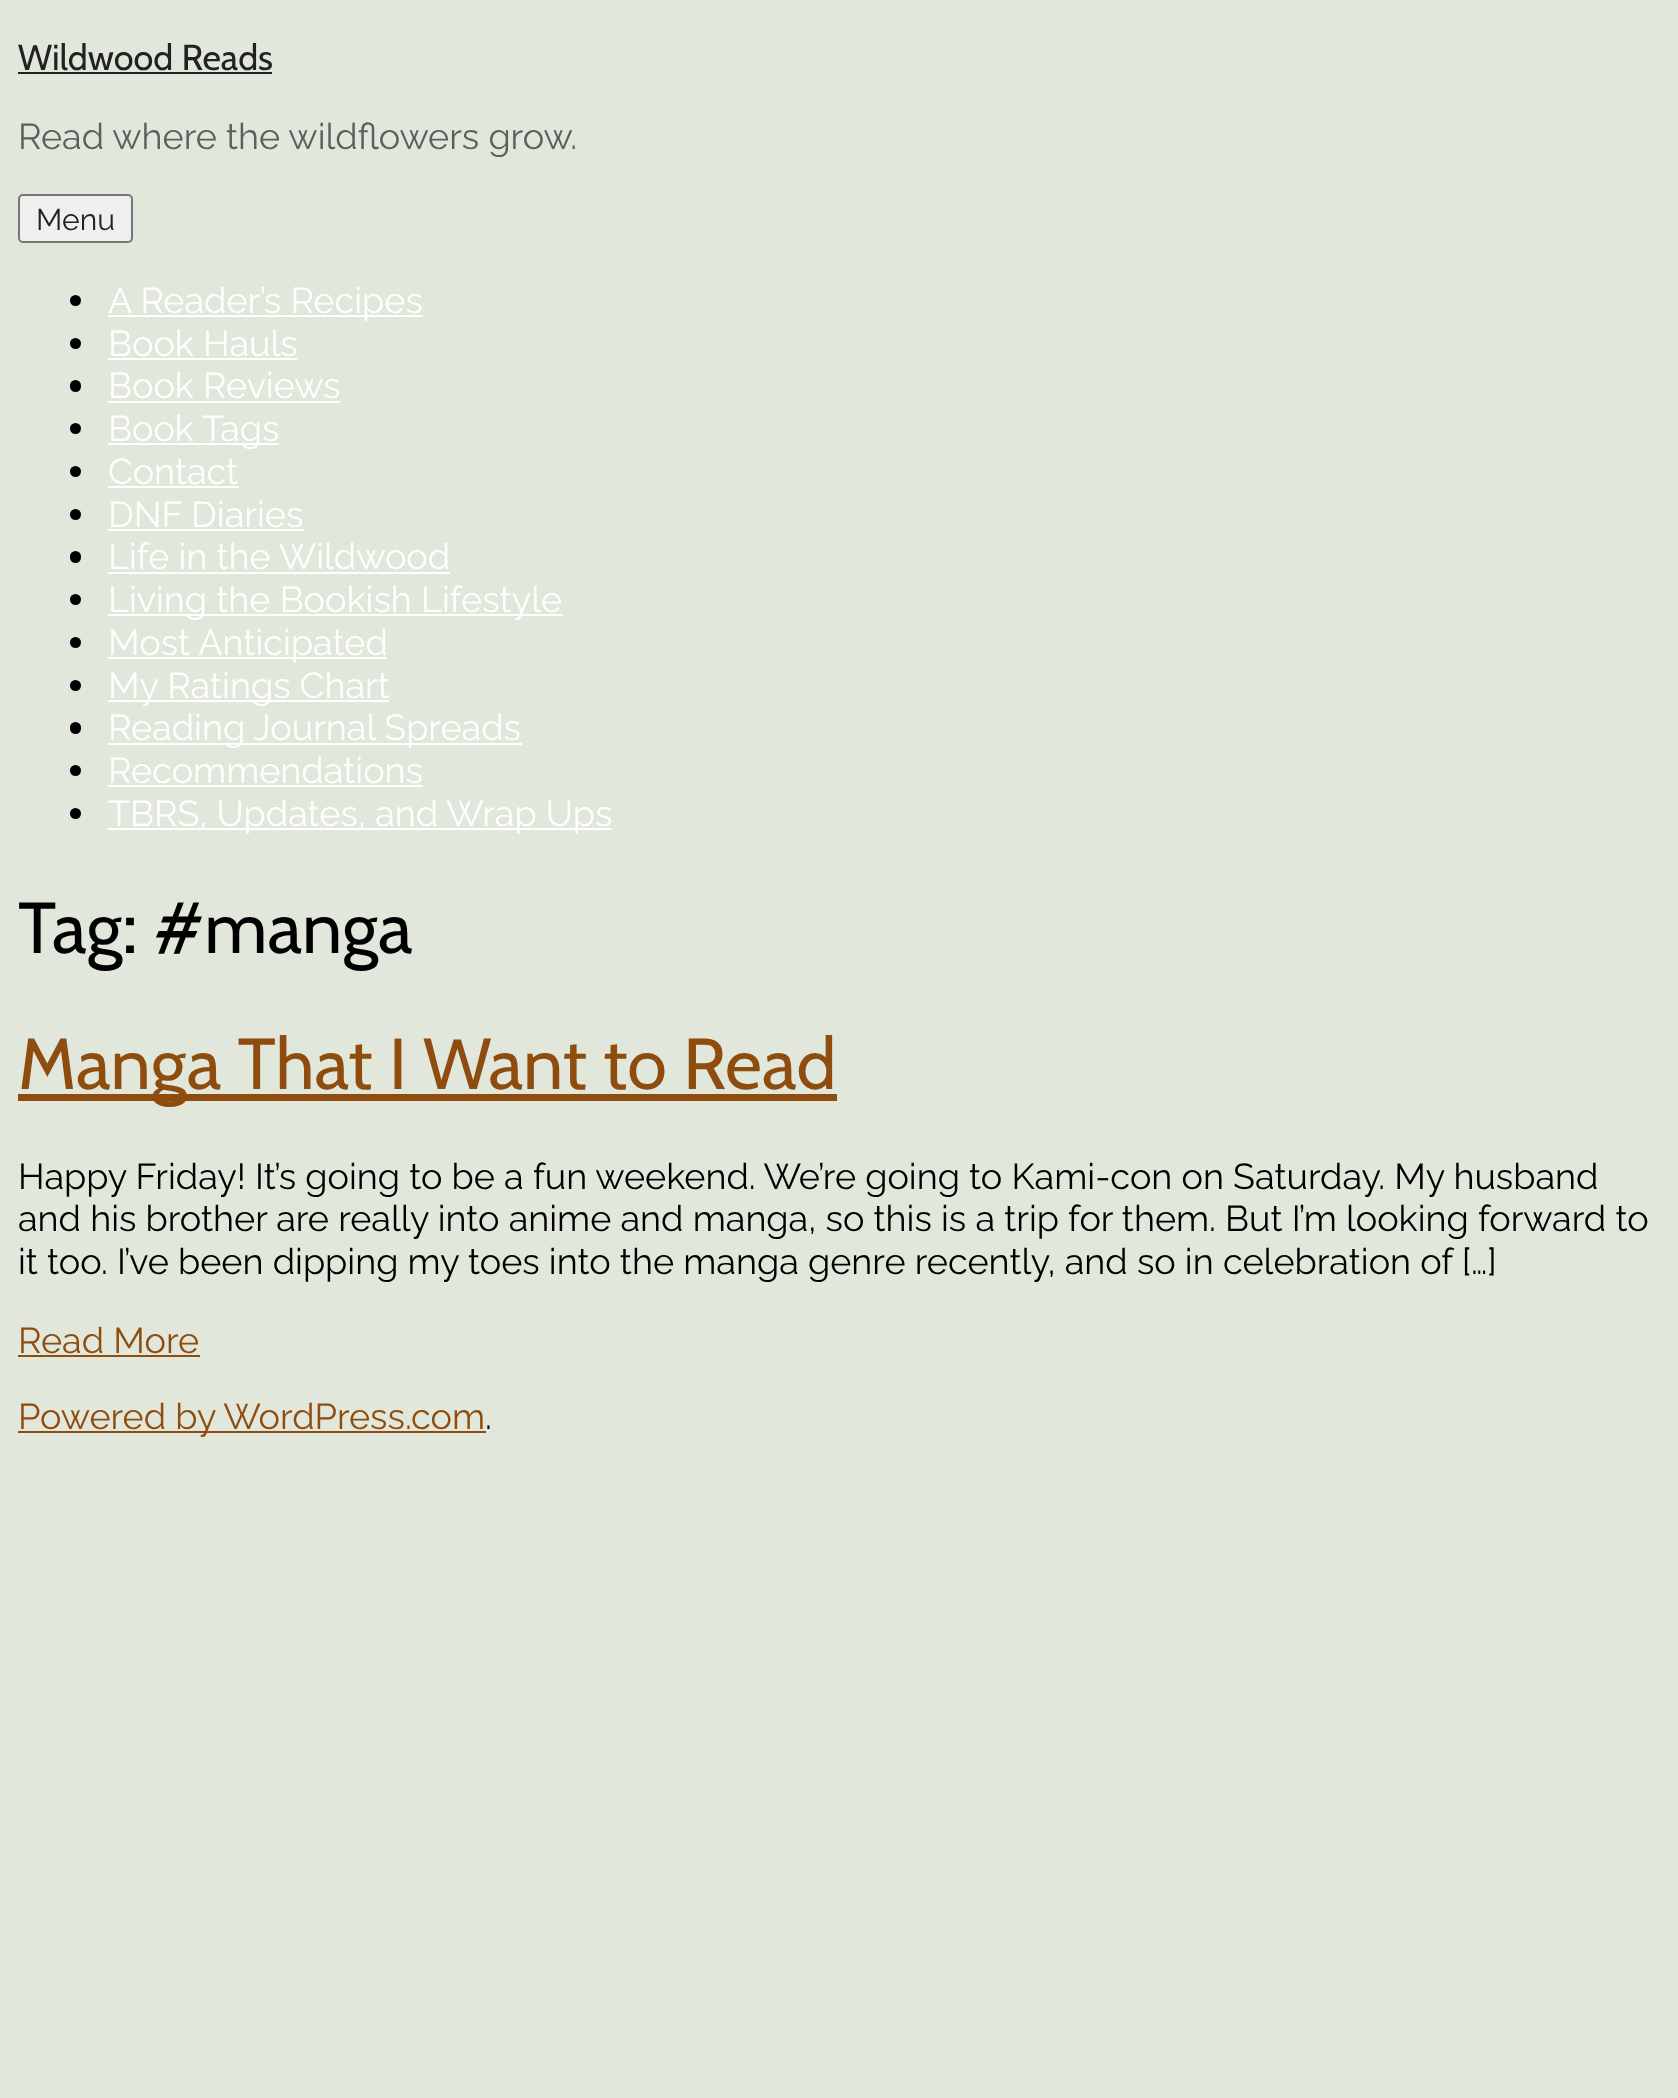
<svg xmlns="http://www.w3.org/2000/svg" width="1678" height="2098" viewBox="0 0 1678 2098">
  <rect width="100%" height="100%" fill="#e1e7da"/>
  <text x="18" y="70" font-family="Cabin" font-size="36" fill="#222222">Wildwood Reads</text>
  <rect x="18" y="72" width="254" height="2" fill="#222222"/>
  <text x="18" y="149" font-family="Raleway" font-size="36" fill="#5e5e5e">Read where the wildflowers grow.</text>
  <rect x="19" y="195" width="113" height="47" rx="4" fill="#efefef" stroke="#767676" stroke-width="2"/>
  <text x="36" y="230" font-family="Raleway" font-size="30" fill="#222222">Menu</text>
  <circle cx="75.5" cy="300.5" r="5.5" fill="#000000"/>
  <rect x="108" y="315" width="315" height="2" fill="#ffffff"/>
  <text x="108" y="313" font-family="Raleway" font-size="36" fill="#ffffff">A Reader’s Recipes</text>
  <circle cx="75.5" cy="343.5" r="5.5" fill="#000000"/>
  <text x="108" y="356" font-family="Raleway" font-size="36" fill="#ffffff">Book Hauls</text>
  <rect x="108" y="358" width="189" height="2" fill="#ffffff"/>
  <rect x="70" y="380" width="11" height="12" rx="5.5" fill="#000000"/>
  <text x="108" y="398" font-family="Raleway" font-size="36" fill="#ffffff">Book Reviews</text>
  <rect x="108" y="401" width="232" height="2" fill="#ffffff"/>
  <circle cx="75.5" cy="428.5" r="5.5" fill="#000000"/>
  <rect x="108" y="443" width="171" height="2" fill="#ffffff"/>
  <text x="108" y="441" font-family="Raleway" font-size="36" fill="#ffffff">Book Tags</text>
  <circle cx="75.5" cy="471.5" r="5.5" fill="#000000"/>
  <text x="108" y="484" font-family="Raleway" font-size="36" fill="#ffffff">Contact</text>
  <rect x="108" y="486" width="131" height="2" fill="#ffffff"/>
  <circle cx="75.5" cy="514.5" r="5.5" fill="#000000"/>
  <text x="108" y="527" font-family="Raleway" font-size="36" fill="#ffffff">DNF Diaries</text>
  <rect x="108" y="529" width="196" height="2" fill="#ffffff"/>
  <rect x="70" y="551" width="11" height="12" rx="5.5" fill="#000000"/>
  <text x="108" y="569" font-family="Raleway" font-size="36" fill="#ffffff">Life in the Wildwood</text>
  <rect x="108" y="572" width="342" height="2" fill="#ffffff"/>
  <circle cx="75.5" cy="599.5" r="5.5" fill="#000000"/>
  <rect x="108" y="614" width="455" height="2" fill="#ffffff"/>
  <text x="108" y="612" font-family="Raleway" font-size="36" fill="#ffffff">Living the Bookish Lifestyle</text>
  <circle cx="75.5" cy="642.5" r="5.5" fill="#000000"/>
  <rect x="108" y="657" width="279" height="2" fill="#ffffff"/>
  <text x="108" y="655" font-family="Raleway" font-size="36" fill="#ffffff">Most Anticipated</text>
  <circle cx="75.5" cy="685.5" r="5.5" fill="#000000"/>
  <rect x="108" y="700" width="281" height="2" fill="#ffffff"/>
  <text x="108" y="698" font-family="Raleway" font-size="36" fill="#ffffff">My Ratings Chart</text>
  <rect x="70" y="722" width="11" height="12" rx="5.5" fill="#000000"/>
  <rect x="108" y="743" width="414" height="2" fill="#ffffff"/>
  <text x="108" y="740" font-family="Raleway" font-size="36" fill="#ffffff">Reading Journal Spreads</text>
  <circle cx="75.5" cy="770.5" r="5.5" fill="#000000"/>
  <text x="108" y="783" font-family="Raleway" font-size="36" fill="#ffffff">Recommendations</text>
  <rect x="108" y="785" width="315" height="2" fill="#ffffff"/>
  <circle cx="75.5" cy="813.5" r="5.5" fill="#000000"/>
  <rect x="108" y="828" width="504" height="2" fill="#ffffff"/>
  <text x="108" y="826" font-family="Raleway" font-size="36" fill="#ffffff">TBRS, Updates, and Wrap Ups</text>
  <text x="18" y="953" font-family="Cabin" font-size="72" fill="#000000">Tag: #manga</text>
  <rect x="18" y="1094" width="819" height="7" fill="#8f4c0f"/>
  <text x="18" y="1089" font-family="Cabin" font-size="72" fill="#8f4c0f">Manga That I Want to Read</text>
  <text x="18" y="1189" font-family="Raleway" font-size="36" fill="#000000">Happy Friday! It’s going to be a fun weekend. We’re going to Kami-con on Saturday. My husband</text>
  <text x="18" y="1231" font-family="Raleway" font-size="36" fill="#000000">and his brother are really into anime and manga, so this is a trip for them. But I’m looking forward to</text>
  <text x="18" y="1274" font-family="Raleway" font-size="36" fill="#000000">it too. I’ve been dipping my toes into the manga genre recently, and so in celebration of […]</text>
  <text x="18" y="1353" font-family="Raleway" font-size="36" fill="#8f4c0f">Read More</text>
  <rect x="18" y="1355" width="182" height="2" fill="#8f4c0f"/>
  <rect x="18" y="1431" width="468" height="2" fill="#8f4c0f"/>
  <text x="18" y="1429" font-family="Raleway" font-size="36" fill="#8f4c0f">Powered by WordPress.com</text>
  <text x="485" y="1429" font-family="Raleway" font-size="36" fill="#000000">.</text>
</svg>
